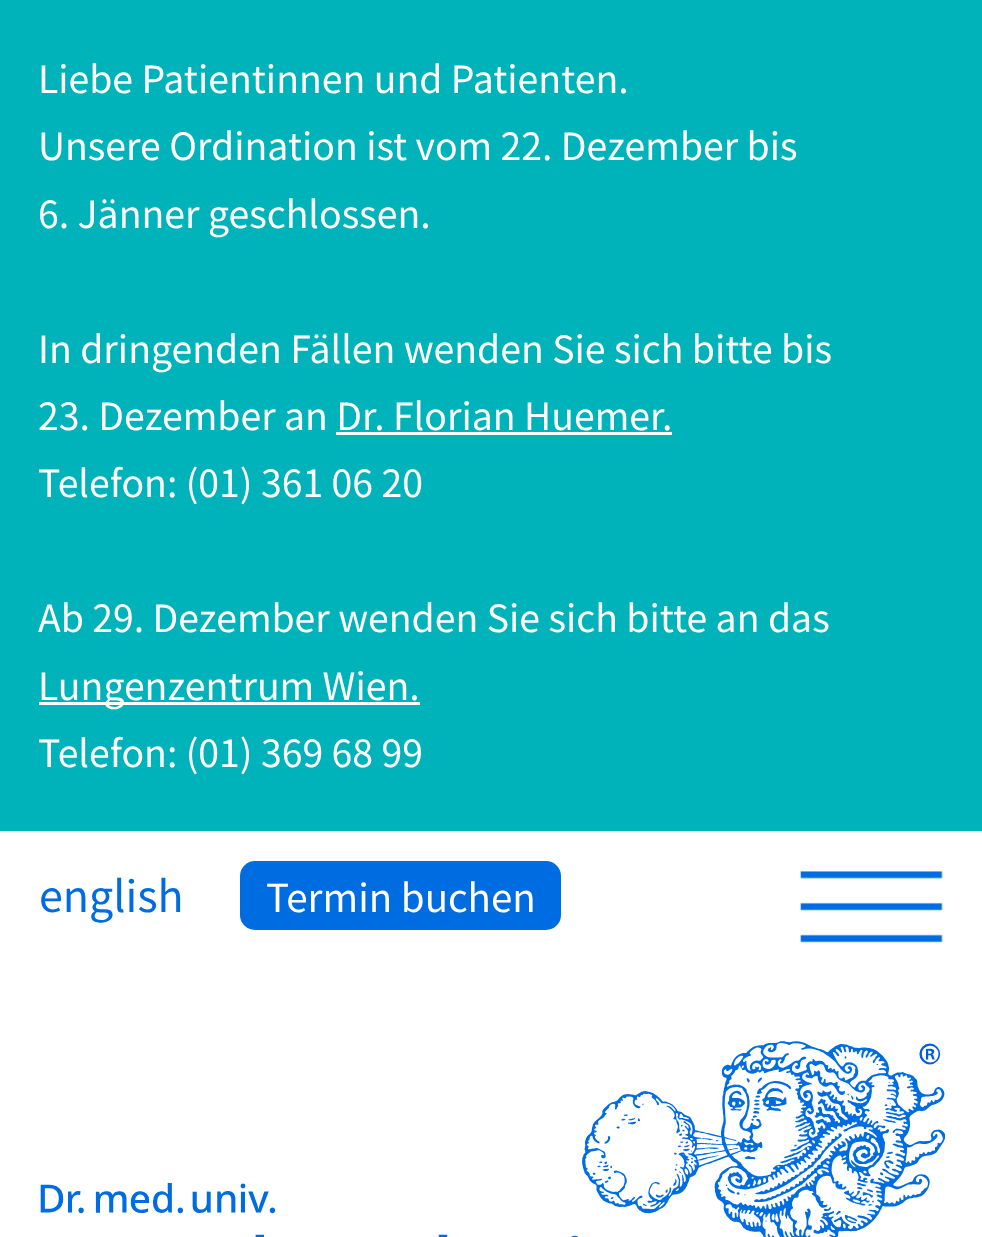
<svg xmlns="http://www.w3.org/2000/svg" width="982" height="1237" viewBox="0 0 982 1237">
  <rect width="100%" height="100%" fill="#ffffff"/>
  <rect x="0" y="0" width="982" height="831" fill="#00b2b9"/>
  <text x="38" y="93" font-family="Noto Sans JP" font-size="37.4" fill="#ffffff">Liebe Patientinnen und Patienten.</text>
  <text x="38" y="160" font-family="Noto Sans JP" font-size="37.4" fill="#ffffff">Unsere Ordination ist vom 22. Dezember bis</text>
  <text x="38" y="228" font-family="Noto Sans JP" font-size="37.4" fill="#ffffff">6. Jänner geschlossen.</text>
  <text x="38" y="363" font-family="Noto Sans JP" font-size="37.4" fill="#ffffff">In dringenden Fällen wenden Sie sich bitte bis</text>
  <text x="38" y="430" font-family="Noto Sans JP" font-size="37.4" fill="#ffffff">23. Dezember an Dr. Florian Huemer.</text>
  <rect x="336" y="432" width="336" height="3" fill="#ffffff"/>
  <text x="38" y="497" font-family="Noto Sans JP" font-size="37.4" fill="#ffffff">Telefon: (01) 361 06 20</text>
  <text x="38" y="632" font-family="Noto Sans JP" font-size="37.4" fill="#ffffff">Ab 29. Dezember wenden Sie sich bitte an das</text>
  <rect x="39" y="702" width="381" height="3" fill="#ffffff"/>
  <text x="38" y="700" font-family="Noto Sans JP" font-size="37.4" fill="#ffffff">Lungenzentrum Wien.</text>
  <text x="38" y="767" font-family="Noto Sans JP" font-size="37.4" fill="#ffffff">Telefon: (01) 369 68 99</text>
  <text x="39" y="912" font-family="Noto Sans JP" font-size="43" fill="#006ce2">english</text>
  <rect x="240" y="861" width="321" height="69" rx="15" fill="#006ce2"/>
  <text x="266" y="912" font-family="Noto Sans JP" font-size="38.5" fill="#ffffff">Termin buchen</text>
  <image x="800" y="871" width="143" height="72" href="img1.png"/>
  <image x="40" y="1183" width="538" height="54" href="img2.png"/>
  <image x="582" y="1041" width="363" height="196" href="img3.png"/>
</svg>
